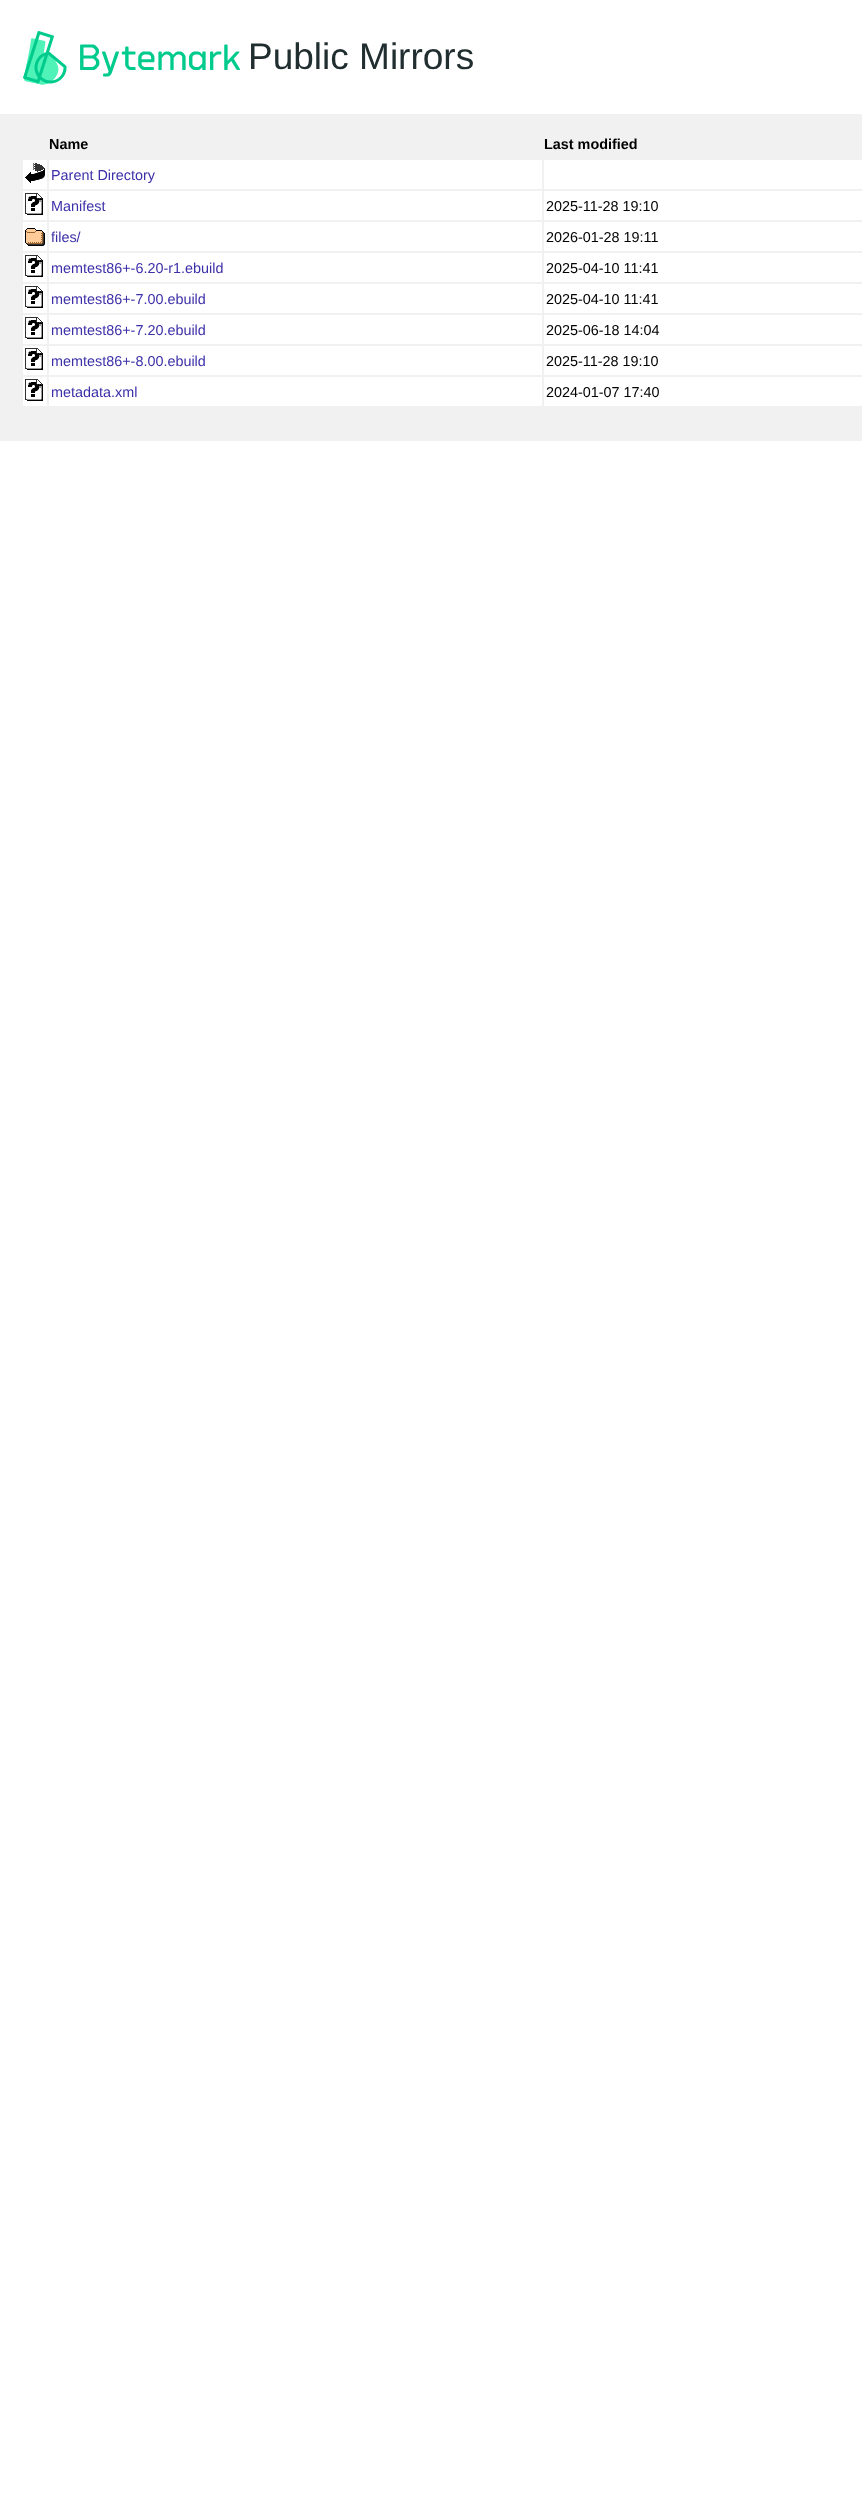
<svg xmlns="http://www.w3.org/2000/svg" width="862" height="2499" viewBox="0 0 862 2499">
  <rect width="100%" height="100%" fill="#ffffff"/>
  <rect x="0" y="114" width="862" height="327" fill="#f1f1f1"/>
  <image x="23" y="31" width="217" height="54" href="img1.png"/>
  <text x="248" y="69" font-family="Liberation Sans" font-size="37" fill="#212e30">Public Mirrors</text>
  <text x="49" y="149" font-family="Liberation Sans" font-size="14.4" font-weight="bold" fill="#000000">Name</text>
  <text x="544" y="149" font-family="Liberation Sans" font-size="14.4" font-weight="bold" fill="#000000">Last modified</text>
  <rect x="23" y="160" width="24" height="29" fill="#ffffff"/>
  <image x="25" y="163" width="20" height="20" href="img2.png"/>
  <rect x="49" y="160" width="493" height="29" fill="#ffffff"/>
  <text x="51" y="180" font-family="Liberation Sans" font-size="14.4" fill="#3c30a9">Parent Directory</text>
  <rect x="544" y="160" width="318" height="29" fill="#ffffff"/>
  <rect x="23" y="191" width="24" height="29" fill="#ffffff"/>
  <image x="25" y="193" width="18" height="22" href="img3.png"/>
  <rect x="49" y="191" width="493" height="29" fill="#ffffff"/>
  <text x="51" y="211" font-family="Liberation Sans" font-size="14.4" fill="#3c30a9">Manifest</text>
  <rect x="544" y="191" width="318" height="29" fill="#ffffff"/>
  <text x="546" y="211" font-family="Liberation Sans" font-size="14.4" fill="#000000">2025-11-28 19:10</text>
  <rect x="23" y="222" width="24" height="29" fill="#ffffff"/>
  <image x="25" y="228" width="20" height="18" href="img4.png"/>
  <rect x="49" y="222" width="493" height="29" fill="#ffffff"/>
  <text x="51" y="242" font-family="Liberation Sans" font-size="14.4" fill="#3c30a9">files/</text>
  <rect x="544" y="222" width="318" height="29" fill="#ffffff"/>
  <text x="546" y="242" font-family="Liberation Sans" font-size="14.4" fill="#000000">2026-01-28 19:11</text>
  <rect x="23" y="253" width="24" height="29" fill="#ffffff"/>
  <image x="25" y="255" width="18" height="22" href="img3.png"/>
  <rect x="49" y="253" width="493" height="29" fill="#ffffff"/>
  <text x="51" y="273" font-family="Liberation Sans" font-size="14.4" fill="#3c30a9">memtest86+-6.20-r1.ebuild</text>
  <rect x="544" y="253" width="318" height="29" fill="#ffffff"/>
  <text x="546" y="273" font-family="Liberation Sans" font-size="14.4" fill="#000000">2025-04-10 11:41</text>
  <rect x="23" y="284" width="24" height="29" fill="#ffffff"/>
  <image x="25" y="286" width="18" height="22" href="img3.png"/>
  <rect x="49" y="284" width="493" height="29" fill="#ffffff"/>
  <text x="51" y="304" font-family="Liberation Sans" font-size="14.4" fill="#3c30a9">memtest86+-7.00.ebuild</text>
  <rect x="544" y="284" width="318" height="29" fill="#ffffff"/>
  <text x="546" y="304" font-family="Liberation Sans" font-size="14.4" fill="#000000">2025-04-10 11:41</text>
  <rect x="23" y="315" width="24" height="29" fill="#ffffff"/>
  <image x="25" y="317" width="18" height="22" href="img3.png"/>
  <rect x="49" y="315" width="493" height="29" fill="#ffffff"/>
  <text x="51" y="335" font-family="Liberation Sans" font-size="14.4" fill="#3c30a9">memtest86+-7.20.ebuild</text>
  <rect x="544" y="315" width="318" height="29" fill="#ffffff"/>
  <text x="546" y="335" font-family="Liberation Sans" font-size="14.4" fill="#000000">2025-06-18 14:04</text>
  <rect x="23" y="346" width="24" height="29" fill="#ffffff"/>
  <image x="25" y="348" width="18" height="22" href="img3.png"/>
  <rect x="49" y="346" width="493" height="29" fill="#ffffff"/>
  <text x="51" y="366" font-family="Liberation Sans" font-size="14.4" fill="#3c30a9">memtest86+-8.00.ebuild</text>
  <rect x="544" y="346" width="318" height="29" fill="#ffffff"/>
  <text x="546" y="366" font-family="Liberation Sans" font-size="14.4" fill="#000000">2025-11-28 19:10</text>
  <rect x="23" y="377" width="24" height="29" fill="#ffffff"/>
  <image x="25" y="379" width="18" height="22" href="img3.png"/>
  <rect x="49" y="377" width="493" height="29" fill="#ffffff"/>
  <text x="51" y="397" font-family="Liberation Sans" font-size="14.4" fill="#3c30a9">metadata.xml</text>
  <rect x="544" y="377" width="318" height="29" fill="#ffffff"/>
  <text x="546" y="397" font-family="Liberation Sans" font-size="14.4" fill="#000000">2024-01-07 17:40</text>
</svg>
